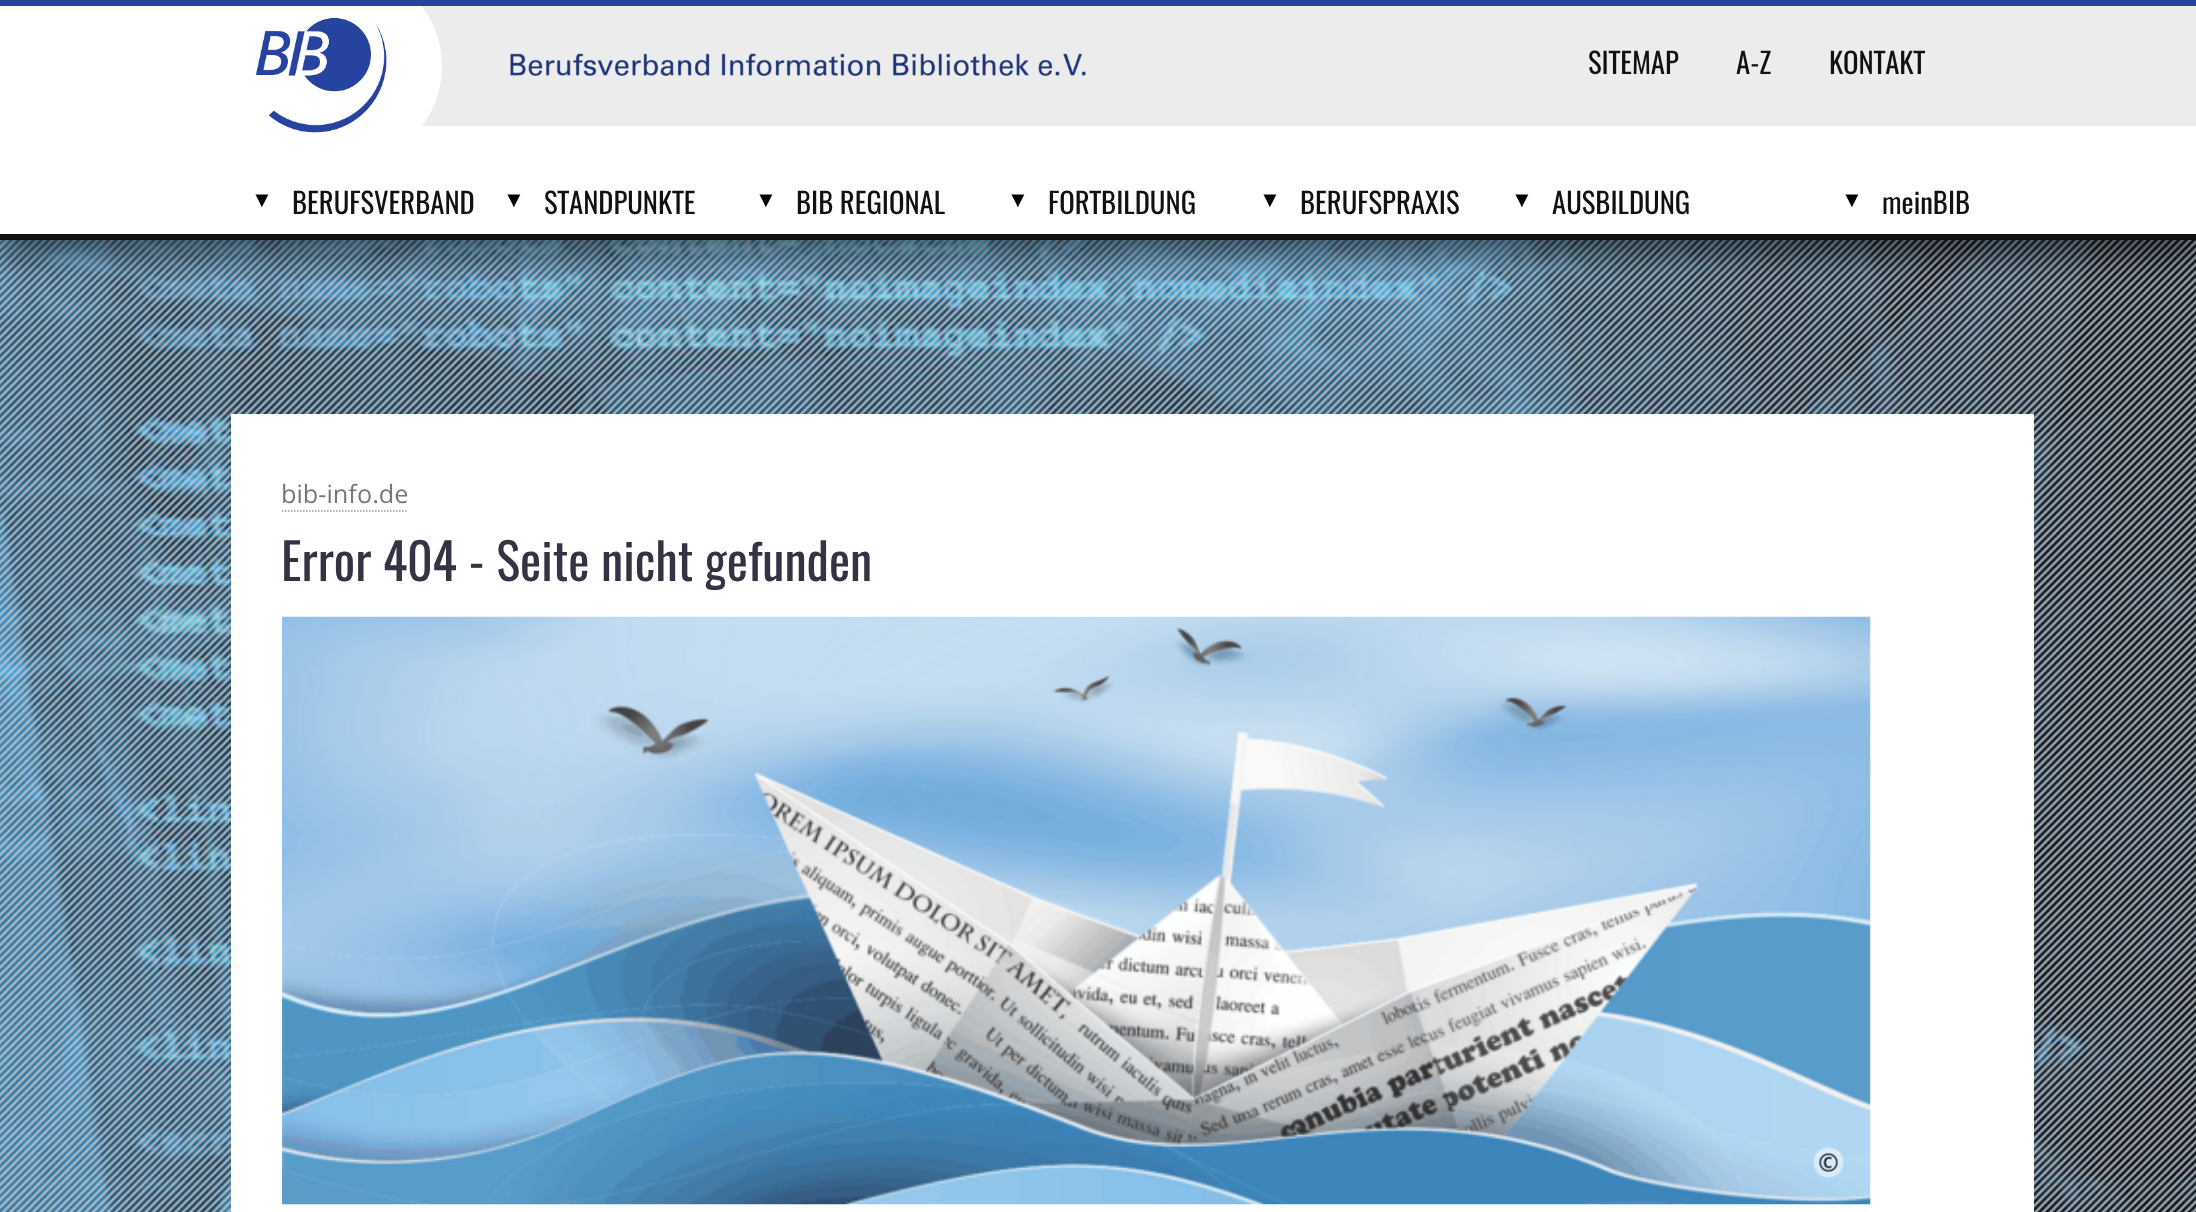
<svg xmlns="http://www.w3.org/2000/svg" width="2196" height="1212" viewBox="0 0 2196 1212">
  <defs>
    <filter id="blur1" x="-50%" y="-200%" width="200%" height="500%"><feGaussianBlur stdDeviation="15"/></filter>
  </defs>
  <rect width="100%" height="100%" fill="#ffffff"/>
  <image x="0" y="240" width="2196" height="972" href="img1.png"/>
  <image x="0" y="240" width="2196" height="972" href="img4.png"/>
  <rect x="0" y="15" width="2196" height="240" fill="#000000" fill-opacity="0.5" filter="url(#blur1)"/>
  <rect x="0" y="6" width="2196" height="228" fill="#ffffff"/>
  <rect x="0" y="0" width="2196" height="6" fill="#2743a0"/>
  <rect x="0" y="234" width="2196" height="6" fill="#111111"/>
  <rect x="422" y="6" width="1774" height="120" fill="#ececec"/>
  <image x="242" y="6" width="200" height="120" href="img2.png"/>
  <image x="255" y="17" width="831" height="116" href="img3.png"/>
  <text x="1588" y="74" font-family="Oswald" font-size="28.75" fill="#111111">SITEMAP</text>
  <text x="1736" y="74" font-family="Oswald" font-size="28.75" fill="#111111">A-Z</text>
  <text x="1829" y="74" font-family="Oswald" font-size="28.75" fill="#111111">KONTAKT</text>
  <text x="251" y="207" font-family="Liberation Sans" font-size="22" fill="#000000">▼</text>
  <text x="292" y="214" font-family="Oswald" font-size="28.75" fill="#111111">BERUFSVERBAND</text>
  <text x="503" y="207" font-family="Liberation Sans" font-size="22" fill="#000000">▼</text>
  <text x="544" y="214" font-family="Oswald" font-size="28.75" fill="#111111">STANDPUNKTE</text>
  <text x="755" y="207" font-family="Liberation Sans" font-size="22" fill="#000000">▼</text>
  <text x="796" y="214" font-family="Oswald" font-size="28.75" fill="#111111">BIB REGIONAL</text>
  <text x="1007" y="207" font-family="Liberation Sans" font-size="22" fill="#000000">▼</text>
  <text x="1048" y="214" font-family="Oswald" font-size="28.75" fill="#111111">FORTBILDUNG</text>
  <text x="1259" y="207" font-family="Liberation Sans" font-size="22" fill="#000000">▼</text>
  <text x="1300" y="214" font-family="Oswald" font-size="28.75" fill="#111111">BERUFSPRAXIS</text>
  <text x="1511" y="207" font-family="Liberation Sans" font-size="22" fill="#000000">▼</text>
  <text x="1552" y="214" font-family="Oswald" font-size="28.75" fill="#111111">AUSBILDUNG</text>
  <text x="1841" y="207" font-family="Liberation Sans" font-size="22" fill="#000000">▼</text>
  <text x="1882" y="214" font-family="Oswald" font-size="28.75" fill="#111111">meinBIB</text>
  <rect x="231" y="414" width="1803" height="798" fill="#ffffff"/>
  <text x="281" y="503" font-family="Open Sans" font-size="25.25" fill="#777777">bib-info.de</text>
  <path d="M282 511H408" fill="none" stroke="#999999" stroke-width="1.5" stroke-dasharray="1.5 1.5"/>
  <text x="281" y="581" font-family="Oswald" font-size="50.4" fill="#333344">Error 404 - Seite nicht gefunden</text>
  <image x="282" y="616" width="1589" height="589" href="img5.png"/>
  <image x="1813" y="1147" width="31" height="31" href="img6.png"/>
</svg>
